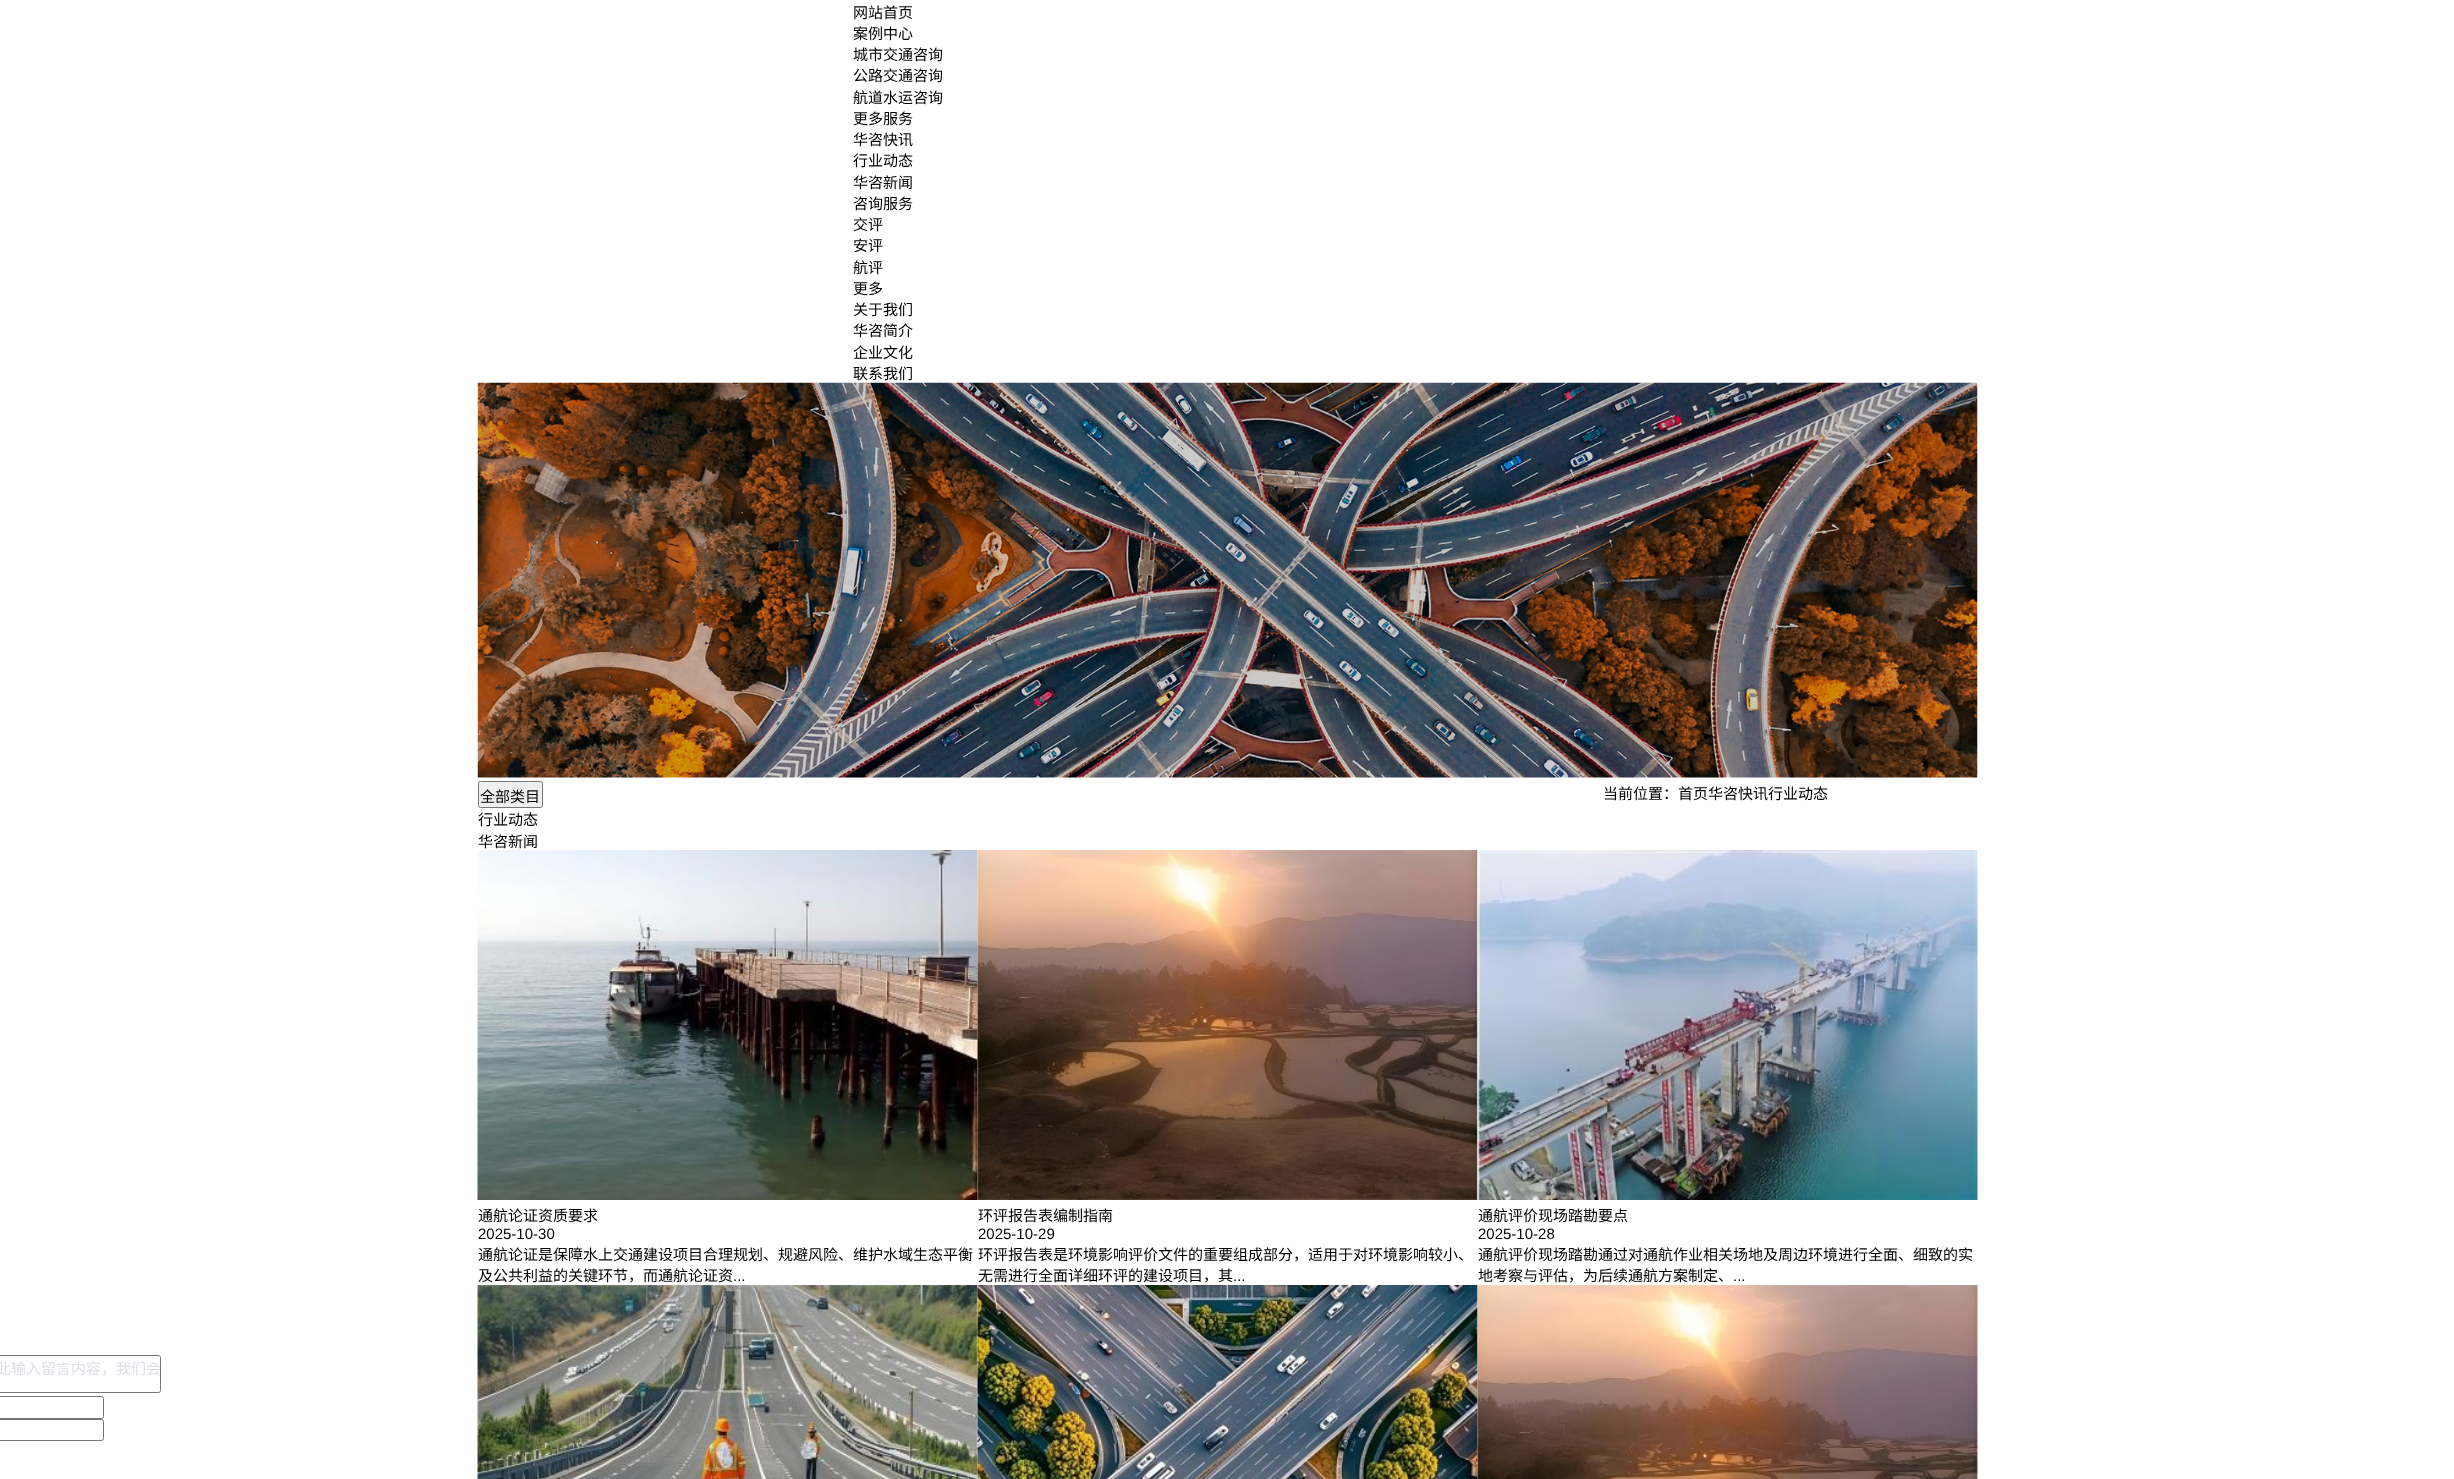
<svg xmlns="http://www.w3.org/2000/svg" width="2454" height="1479" viewBox="0 0 2454 1479">
  <rect width="100%" height="100%" fill="#ffffff"/>
  <text x="853" y="18" font-family="Noto Sans CJK SC" font-size="15" fill="#000000">网站首页</text>
  <text x="853" y="39" font-family="Noto Sans CJK SC" font-size="15" fill="#000000">案例中心</text>
  <text x="853" y="60" font-family="Noto Sans CJK SC" font-size="15" fill="#000000">城市交通咨询</text>
  <text x="853" y="81" font-family="Noto Sans CJK SC" font-size="15" fill="#000000">公路交通咨询</text>
  <text x="853" y="103" font-family="Noto Sans CJK SC" font-size="15" fill="#000000">航道水运咨询</text>
  <text x="853" y="124" font-family="Noto Sans CJK SC" font-size="15" fill="#000000">更多服务</text>
  <text x="853" y="145" font-family="Noto Sans CJK SC" font-size="15" fill="#000000">华咨快讯</text>
  <text x="853" y="166" font-family="Noto Sans CJK SC" font-size="15" fill="#000000">行业动态</text>
  <text x="853" y="188" font-family="Noto Sans CJK SC" font-size="15" fill="#000000">华咨新闻</text>
  <text x="853" y="209" font-family="Noto Sans CJK SC" font-size="15" fill="#000000">咨询服务</text>
  <text x="853" y="230" font-family="Noto Sans CJK SC" font-size="15" fill="#000000">交评</text>
  <text x="853" y="251" font-family="Noto Sans CJK SC" font-size="15" fill="#000000">安评</text>
  <text x="853" y="273" font-family="Noto Sans CJK SC" font-size="15" fill="#000000">航评</text>
  <text x="853" y="294" font-family="Noto Sans CJK SC" font-size="15" fill="#000000">更多</text>
  <text x="853" y="315" font-family="Noto Sans CJK SC" font-size="15" fill="#000000">关于我们</text>
  <text x="853" y="336" font-family="Noto Sans CJK SC" font-size="15" fill="#000000">华咨简介</text>
  <text x="853" y="358" font-family="Noto Sans CJK SC" font-size="15" fill="#000000">企业文化</text>
  <text x="853" y="379" font-family="Noto Sans CJK SC" font-size="15" fill="#000000">联系我们</text>
  <image x="477" y="382" width="1501" height="396" href="img1.png"/>
  <rect x="478.5" y="781.5" width="64" height="26" rx="2" fill="#efefef" stroke="#767676"/>
  <text x="480" y="802" font-family="Noto Sans CJK SC" font-size="15" fill="#000000">全部类目</text>
  <text x="478" y="825" font-family="Noto Sans CJK SC" font-size="15" fill="#000000">行业动态</text>
  <text x="478" y="847" font-family="Noto Sans CJK SC" font-size="15" fill="#000000">华咨新闻</text>
  <text x="1603" y="799" font-family="Noto Sans CJK SC" font-size="15" fill="#000000">当前位置：首页华咨快讯行业动态</text>
  <image x="477" y="850" width="501" height="350" href="img2.png"/>
  <text x="478" y="1221" font-family="Noto Sans CJK SC" font-size="15" fill="#000000">通航论证资质要求</text>
  <text x="478" y="1239" font-family="Liberation Sans" font-size="15" fill="#000000">2025-10-30</text>
  <text x="478" y="1260" font-family="Noto Sans CJK SC" font-size="15" fill="#000000">通航论证是保障水上交通建设项目合理规划、规避风险、维护水域生态平衡</text>
  <text x="478" y="1281" font-family="Noto Sans CJK SC" font-size="15" fill="#000000">及公共利益的关键环节，而通航论证资</text>
  <text x="733" y="1281" font-family="Liberation Sans" font-size="15" fill="#000000">...</text>
  <image x="977" y="850" width="501" height="350" href="img3.png"/>
  <text x="978" y="1221" font-family="Noto Sans CJK SC" font-size="15" fill="#000000">环评报告表编制指南</text>
  <text x="978" y="1239" font-family="Liberation Sans" font-size="15" fill="#000000">2025-10-29</text>
  <text x="978" y="1260" font-family="Noto Sans CJK SC" font-size="15" fill="#000000">环评报告表是环境影响评价文件的重要组成部分，适用于对环境影响较小、</text>
  <text x="978" y="1281" font-family="Noto Sans CJK SC" font-size="15" fill="#000000">无需进行全面详细环评的建设项目，其</text>
  <text x="1233" y="1281" font-family="Liberation Sans" font-size="15" fill="#000000">...</text>
  <image x="1477" y="850" width="501" height="350" href="img4.png"/>
  <text x="1478" y="1221" font-family="Noto Sans CJK SC" font-size="15" fill="#000000">通航评价现场踏勘要点</text>
  <text x="1478" y="1239" font-family="Liberation Sans" font-size="15" fill="#000000">2025-10-28</text>
  <text x="1478" y="1260" font-family="Noto Sans CJK SC" font-size="15" fill="#000000">通航评价现场踏勘通过对通航作业相关场地及周边环境进行全面、细致的实</text>
  <text x="1478" y="1281" font-family="Noto Sans CJK SC" font-size="15" fill="#000000">地考察与评估，为后续通航方案制定、</text>
  <text x="1733" y="1281" font-family="Liberation Sans" font-size="15" fill="#000000">...</text>
  <image x="477" y="1285" width="501" height="194" href="img5.png"/>
  <image x="977" y="1285" width="501" height="194" href="img6.png"/>
  <image x="1477" y="1285" width="501" height="194" href="img7.png"/>
  <rect x="-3.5" y="1355.5" width="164" height="37" rx="2" fill="none" stroke="#767676"/>
  <text x="-4" y="1374" font-family="Noto Sans CJK SC" font-size="15" fill="#dcdfe6">此输入留言内容，我们会</text>
  <rect x="-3.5" y="1396.5" width="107" height="22" rx="2" fill="none" stroke="#767676"/>
  <rect x="-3.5" y="1419.5" width="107" height="21" rx="2" fill="none" stroke="#767676"/>
</svg>
